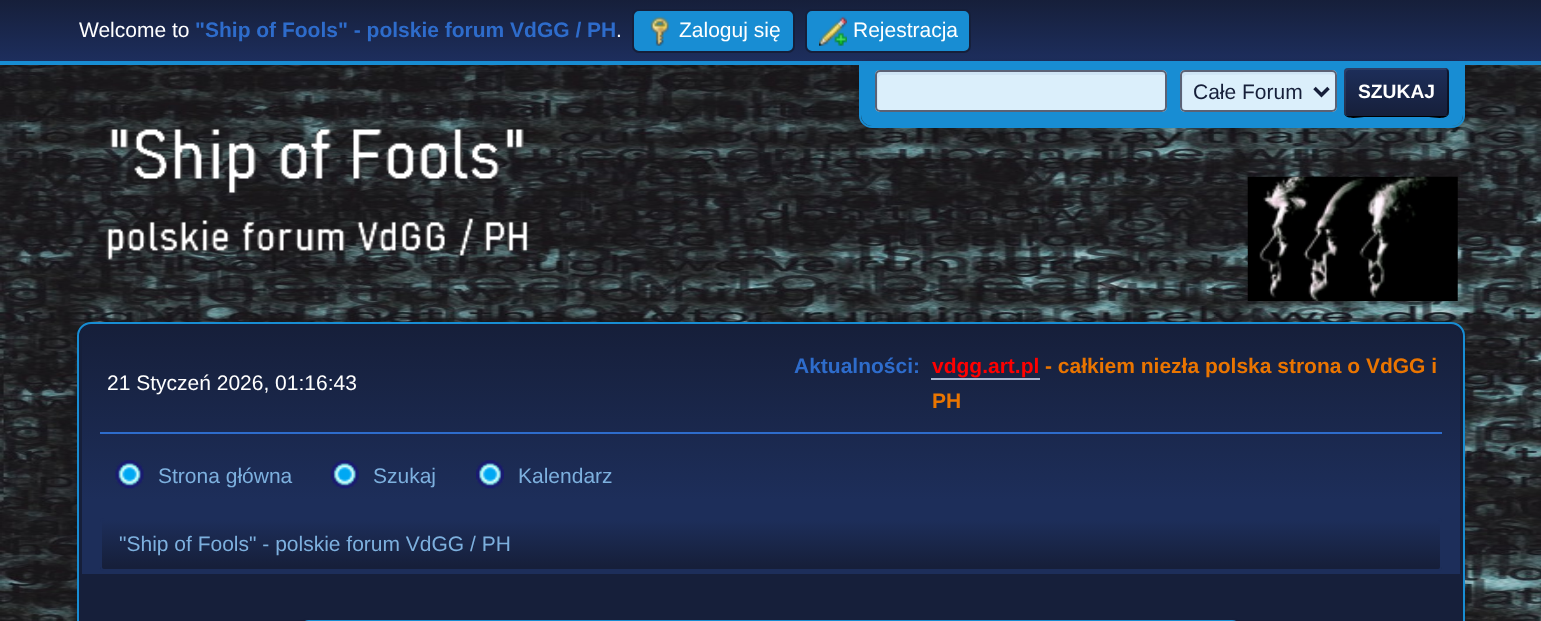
<svg xmlns="http://www.w3.org/2000/svg" width="1541" height="621" viewBox="0 0 1541 621">
  <defs>
    <filter id="blur1" x="-50%" y="-200%" width="200%" height="500%"><feGaussianBlur stdDeviation="3.5"/></filter>
    <linearGradient id="g1" gradientUnits="userSpaceOnUse" x1="771" y1="0" x2="771" y2="61"><stop offset="0" stop-color="#161f3a"/><stop offset="1" stop-color="#1d2e5d"/></linearGradient>
    <linearGradient id="g2" gradientUnits="userSpaceOnUse" x1="1397" y1="68" x2="1397" y2="116"><stop offset="0" stop-color="#1d2e5a"/><stop offset="1" stop-color="#161f3a"/></linearGradient>
    <filter id="blur2" x="-50%" y="-200%" width="200%" height="500%"><feGaussianBlur stdDeviation="2.5"/></filter>
    <linearGradient id="g3" gradientUnits="userSpaceOnUse" x1="771" y1="327" x2="771" y2="574"><stop offset="0" stop-color="#161f3a"/><stop offset="0.7" stop-color="#1d2e5a"/></linearGradient>
    <clipPath id="clip1"><rect x="100" y="518" width="1342" height="53" rx="4"/></clipPath>
    <linearGradient id="g4" gradientUnits="userSpaceOnUse" x1="771" y1="520" x2="771" y2="569"><stop offset="0" stop-color="#1d2e5a"/><stop offset="0.95" stop-color="#161f3a"/></linearGradient>
  </defs>
  <rect width="100%" height="100%" fill="#ffffff"/>
  <image x="0" y="65" width="1541" height="556" href="img1.png"/>
  <rect x="0" y="2" width="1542" height="65" fill="#000000" fill-opacity="0.16" filter="url(#blur1)"/>
  <rect x="0" y="0" width="1541" height="61" fill="url(#g1)"/>
  <rect x="0" y="61" width="1541" height="4" fill="#188dd3"/>
  <text x="79" y="37" font-family="Liberation Sans" font-size="21" fill="#ffffff">Welcome to</text>
  <text x="195" y="37" font-family="Liberation Sans" font-size="21" font-weight="bold" fill="#2e6ccb">"Ship of Fools" - polskie forum VdGG / PH</text>
  <text x="616" y="37" font-family="Liberation Sans" font-size="21" fill="#ffffff">.</text>
  <rect x="633" y="10" width="161" height="42" rx="6" fill="#188dd3" stroke="#161f3a" stroke-width="2"/>
  <image x="650" y="16" width="19" height="30" href="img2.png"/>
  <text x="679" y="37" font-family="Liberation Sans" font-size="21" fill="#ffffff">Zaloguj się</text>
  <rect x="806" y="10" width="164" height="42" rx="6" fill="#188dd3" stroke="#161f3a" stroke-width="2"/>
  <image x="819" y="16" width="28" height="30" href="img3.png"/>
  <text x="853" y="37" font-family="Liberation Sans" font-size="21" fill="#ffffff">Rejestracja</text>
  <rect x="859" y="63" width="606" height="67" rx="12" fill="#000000" fill-opacity="0.16" filter="url(#blur1)"/>
  <path d="M861 61H1463V115C1463 121 1458 126 1452 126H872C866 126 861 121 861 115Z" fill="#188dd3"/>
  <path d="M859 61H1465V116C1465 122 1459 128 1452 128H872C865 128 859 122 859 116ZM861 61H1463V116C1463 121 1458 126 1452 126H872C866 126 861 121 861 116Z" fill="#188dd3" fill-rule="evenodd"/>
  <rect x="875" y="70" width="292" height="42" rx="5" fill="#dbeffb"/>
  <path d="M882 75H1164L1166 76C1166 74 1164 72 1162 72H881C879 72 877 74 877 76V106C877 107 877 108 878 109V79C878 77 880 75 882 75Z" fill="#cfe5f5"/>
  <rect x="876" y="71" width="290" height="40" rx="4" fill="none" stroke="#5b6275" stroke-width="2"/>
  <rect x="1180" y="70" width="157" height="42" rx="5" fill="#dbeffb"/>
  <path d="M1186 75C1200 75 1333 74 1335 75C1335 73 1333 72 1331 72H1185C1183 72 1181 74 1181 76V106C1181 107 1182 109 1183 109V79C1183 77 1185 75 1186 75Z" fill="#cfe5f5"/>
  <rect x="1181" y="71" width="155" height="40" rx="4" fill="none" stroke="#5b6275" stroke-width="2"/>
  <path d="M1314.5 88L1321.5 95L1328.5 88" fill="none" stroke="#161f3a" stroke-width="3.5"/>
  <text x="1193" y="99" font-family="Liberation Sans" font-size="21" fill="#161f3a">Całe Forum</text>
  <path d="M1344 112C1344 121 1360 117 1364 117H1429C1433 117 1449 121 1449 112C1449 114 1447 116 1446 116H1348C1346 116 1344 114 1344 112Z" fill="#000000"/>
  <rect x="1344" y="68" width="105" height="48" rx="4" fill="url(#g2)"/>
  <path d="M1444 116C1450 116 1449 110 1449 105V79C1449 74 1450 68 1444 68C1446 68 1447 70 1447 72V112C1447 114 1446 116 1444 116Z" fill="#000000" fill-opacity="0.47"/>
  <path d="M1349 70H1447H1449C1448 69 1447 68 1445 68H1348C1346 68 1344 70 1344 72V112C1344 114 1345 115 1346 116V81C1346 79 1344 70 1349 70Z" fill="#ffffff" fill-opacity="0.07"/>
  <text x="1358" y="98" font-family="Liberation Sans" font-size="19.25" font-weight="bold" fill="#ffffff">SZUKAJ</text>
  <image x="106" y="129" width="422" height="131" href="img4.png"/>
  <image x="1247" y="176" width="211" height="125" href="img5.png"/>
  <rect x="77" y="326" width="1388" height="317" rx="14" fill="#000000" fill-opacity="0.14" filter="url(#blur2)"/>
  <rect x="78" y="323" width="1386" height="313" rx="13" fill="#161f3a" stroke="#188dd3" stroke-width="2"/>
  <path d="M93 327H1449C1455 327 1460 332 1460 338V574H82V338C82 332 87 327 93 327Z" fill="url(#g3)"/>
  <rect x="100" y="432" width="1342" height="2" fill="#2e6ccb"/>
  <text x="107" y="390" font-family="Liberation Sans" font-size="21" fill="#ffffff">21 Styczeń 2026, 01:16:43</text>
  <text x="794" y="373" font-family="Liberation Sans" font-size="21" font-weight="bold" fill="#2e6ccb">Aktualności:</text>
  <text x="932" y="373" font-family="Liberation Sans" font-size="21" font-weight="bold" fill="#ff0000">vdgg.art.pl</text>
  <rect x="931" y="378" width="109" height="2" fill="#a8b6cf"/>
  <text x="1045" y="373" font-family="Liberation Sans" font-size="21" font-weight="bold" fill="#ea7500">- całkiem niezła polska strona o VdGG i</text>
  <text x="932" y="408" font-family="Liberation Sans" font-size="21" font-weight="bold" fill="#ea7500">PH</text>
  <image x="115" y="460" width="29" height="29" href="img6.png"/>
  <text x="158" y="483" font-family="Liberation Sans" font-size="21" fill="#7db0de">Strona główna</text>
  <image x="330" y="460" width="29" height="29" href="img7.png"/>
  <text x="373" y="483" font-family="Liberation Sans" font-size="21" fill="#7db0de">Szukaj</text>
  <image x="476" y="460" width="28" height="29" href="img8.png"/>
  <text x="518" y="483" font-family="Liberation Sans" font-size="21" fill="#7db0de">Kalendarz</text>
  <g clip-path="url(#clip1)">
    <rect x="100" y="520" width="1342" height="49" fill="url(#g4)"/>
  </g>
  <rect x="101" y="519" width="1340" height="51" rx="3" fill="none" stroke="#1d2e5a" stroke-width="2"/>
  <text x="119" y="551" font-family="Liberation Sans" font-size="21" fill="#7db0de">"Ship of Fools" - polskie forum VdGG / PH</text>
  <path d="M309 619H1232C1237.5 619 1242 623.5 1242 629V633H299V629C299 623.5 303.5 619 309 619Z" fill="#188dd3" stroke="#161f3a" stroke-width="2"/>
</svg>
